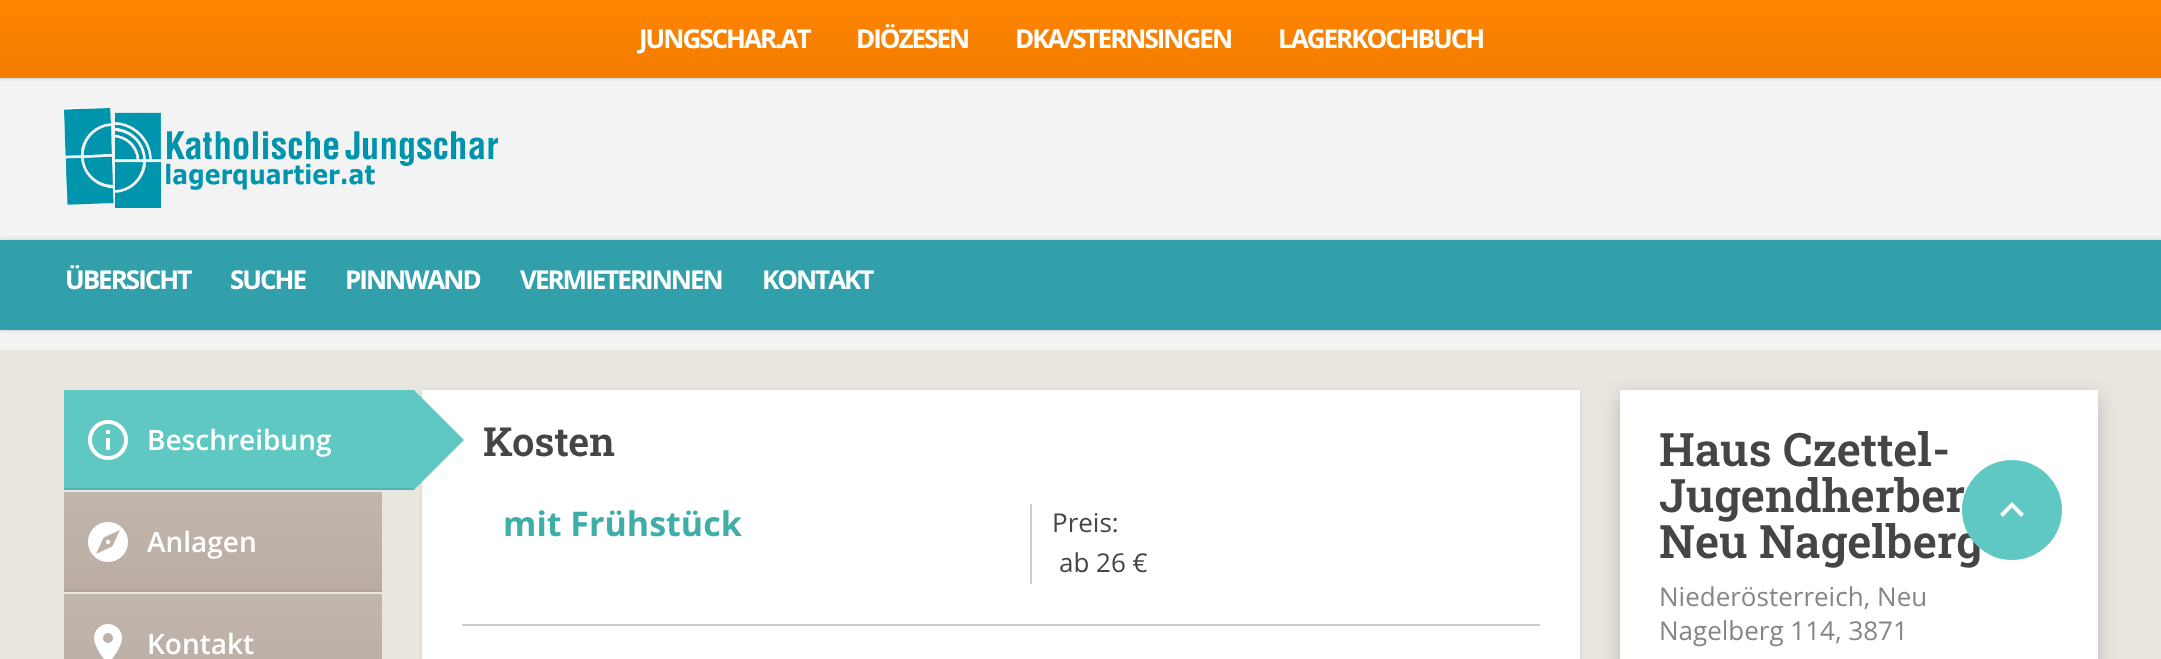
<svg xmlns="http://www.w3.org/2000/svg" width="2161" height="659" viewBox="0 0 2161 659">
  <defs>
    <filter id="blur1" x="-50%" y="-200%" width="200%" height="500%"><feGaussianBlur stdDeviation="2"/></filter>
    <linearGradient id="g1" gradientUnits="userSpaceOnUse" x1="1081" y1="0" x2="1081" y2="78"><stop offset="0" stop-color="#ff8500"/><stop offset="1" stop-color="#f37d00"/></linearGradient>
    <linearGradient id="g2" gradientUnits="userSpaceOnUse" x1="223" y1="492" x2="223" y2="590"><stop offset="0" stop-color="#c1b6ae"/><stop offset="1" stop-color="#baaca3"/></linearGradient>
    <linearGradient id="g3" gradientUnits="userSpaceOnUse" x1="223" y1="594" x2="223" y2="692"><stop offset="0" stop-color="#c1b6ae"/><stop offset="1" stop-color="#baaca3"/></linearGradient>
    <filter id="blur2" x="-50%" y="-200%" width="200%" height="500%"><feGaussianBlur stdDeviation="10"/></filter>
  </defs>
  <rect width="100%" height="100%" fill="#e9e6e0"/>
  <rect x="0" y="78" width="2161" height="272" fill="#f3f3f3"/>
  <rect x="0" y="0" width="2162" height="78" fill="#000000" fill-opacity="0.2" filter="url(#blur1)"/>
  <rect x="0" y="0" width="2161" height="78" fill="url(#g1)"/>
  <text x="639" y="48" font-family="Open Sans" font-size="26" font-weight="bold" letter-spacing="-2" fill="#ffffff">JUNGSCHAR.AT</text>
  <text x="856" y="48" font-family="Open Sans" font-size="26" font-weight="bold" letter-spacing="-2" fill="#ffffff">DIÖZESEN</text>
  <text x="1015" y="48" font-family="Open Sans" font-size="26" font-weight="bold" letter-spacing="-2" fill="#ffffff">DKA/STERNSINGEN</text>
  <text x="1278" y="48" font-family="Open Sans" font-size="26" font-weight="bold" letter-spacing="-2" fill="#ffffff">LAGERKOCHBUCH</text>
  <image x="64" y="108" width="434" height="100" href="img1.png"/>
  <rect x="0" y="240" width="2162" height="90" fill="#000000" fill-opacity="0.2" filter="url(#blur1)"/>
  <rect x="0" y="240" width="2161" height="90" fill="#31a0aa"/>
  <text x="65" y="289" font-family="Open Sans" font-size="26" font-weight="bold" letter-spacing="-2" fill="#ffffff">ÜBERSICHT</text>
  <text x="230" y="289" font-family="Open Sans" font-size="26" font-weight="bold" letter-spacing="-2" fill="#ffffff">SUCHE</text>
  <text x="345" y="289" font-family="Open Sans" font-size="26" font-weight="bold" letter-spacing="-2" fill="#ffffff">PINNWAND</text>
  <text x="520" y="289" font-family="Open Sans" font-size="26" font-weight="bold" letter-spacing="-2" fill="#ffffff">VERMIETERINNEN</text>
  <text x="762" y="289" font-family="Open Sans" font-size="26" font-weight="bold" letter-spacing="-2" fill="#ffffff">KONTAKT</text>
  <rect x="64" y="390" width="350" height="98" fill="#5fc8c2"/>
  <rect x="64" y="488" width="350" height="2" fill="#56b4af"/>
  <image x="88" y="420" width="40" height="40" href="img2.png"/>
  <text x="147" y="450" font-family="Open Sans" font-size="28" font-weight="600" fill="#ffffff">Beschreibung</text>
  <rect x="422" y="390" width="1158" height="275" fill="#000000" fill-opacity="0.1" filter="url(#blur1)"/>
  <rect x="422" y="390" width="1158" height="269" fill="#ffffff"/>
  <path d="M414 490V390L464 440Z" fill="#5fc8c2"/>
  <rect x="64" y="492" width="318" height="98" fill="url(#g2)"/>
  <rect x="64" y="590" width="318" height="2" fill="#aea49d"/>
  <image x="88" y="522" width="40" height="40" href="img3.png"/>
  <text x="147" y="552" font-family="Open Sans" font-size="28" font-weight="600" fill="#ffffff">Anlagen</text>
  <rect x="64" y="594" width="318" height="65" fill="url(#g3)"/>
  <image x="94" y="624" width="28" height="35" href="img4.png"/>
  <text x="147" y="654" font-family="Open Sans" font-size="28" font-weight="600" fill="#ffffff">Kontakt</text>
  <text x="483" y="456" font-family="Roboto Slab" font-size="40" font-weight="600" fill="#454545">Kosten</text>
  <rect x="462" y="624" width="1078" height="2" fill="#cccccc"/>
  <text x="503" y="536" font-family="Open Sans" font-size="34" font-weight="bold" fill="#3faea9">mit Frühstück</text>
  <rect x="1030" y="504" width="2" height="80" fill="#cccccc"/>
  <text x="1052" y="532" font-family="Open Sans" font-size="26" fill="#454545">Preis:</text>
  <text x="1059" y="572" font-family="Open Sans" font-size="26" fill="#454545">ab 26 €</text>
  <rect x="1620" y="396" width="478" height="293" fill="#000000" fill-opacity="0.2" filter="url(#blur2)"/>
  <rect x="1620" y="390" width="478" height="269" fill="#ffffff"/>
  <text x="1659" y="466" font-family="Roboto Slab" font-size="46" font-weight="600" fill="#454545">Haus Czettel-</text>
  <text x="1659" y="512" font-family="Roboto Slab" font-size="46" font-weight="600" fill="#454545">Jugendherber</text>
  <text x="1659" y="558" font-family="Roboto Slab" font-size="46" font-weight="600" fill="#454545">Neu Nagelberg</text>
  <text x="1659" y="606" font-family="Open Sans" font-size="26" fill="#858585">Niederösterreich, Neu</text>
  <text x="1659" y="640" font-family="Open Sans" font-size="26" fill="#858585">Nagelberg 114, 3871</text>
  <circle cx="2012" cy="510" r="50" fill="#5fc8c2"/>
  <path d="M2003 517L2000 514L2012 502L2024 514L2021 517L2012 507.5Z" fill="#ffffff"/>
</svg>
